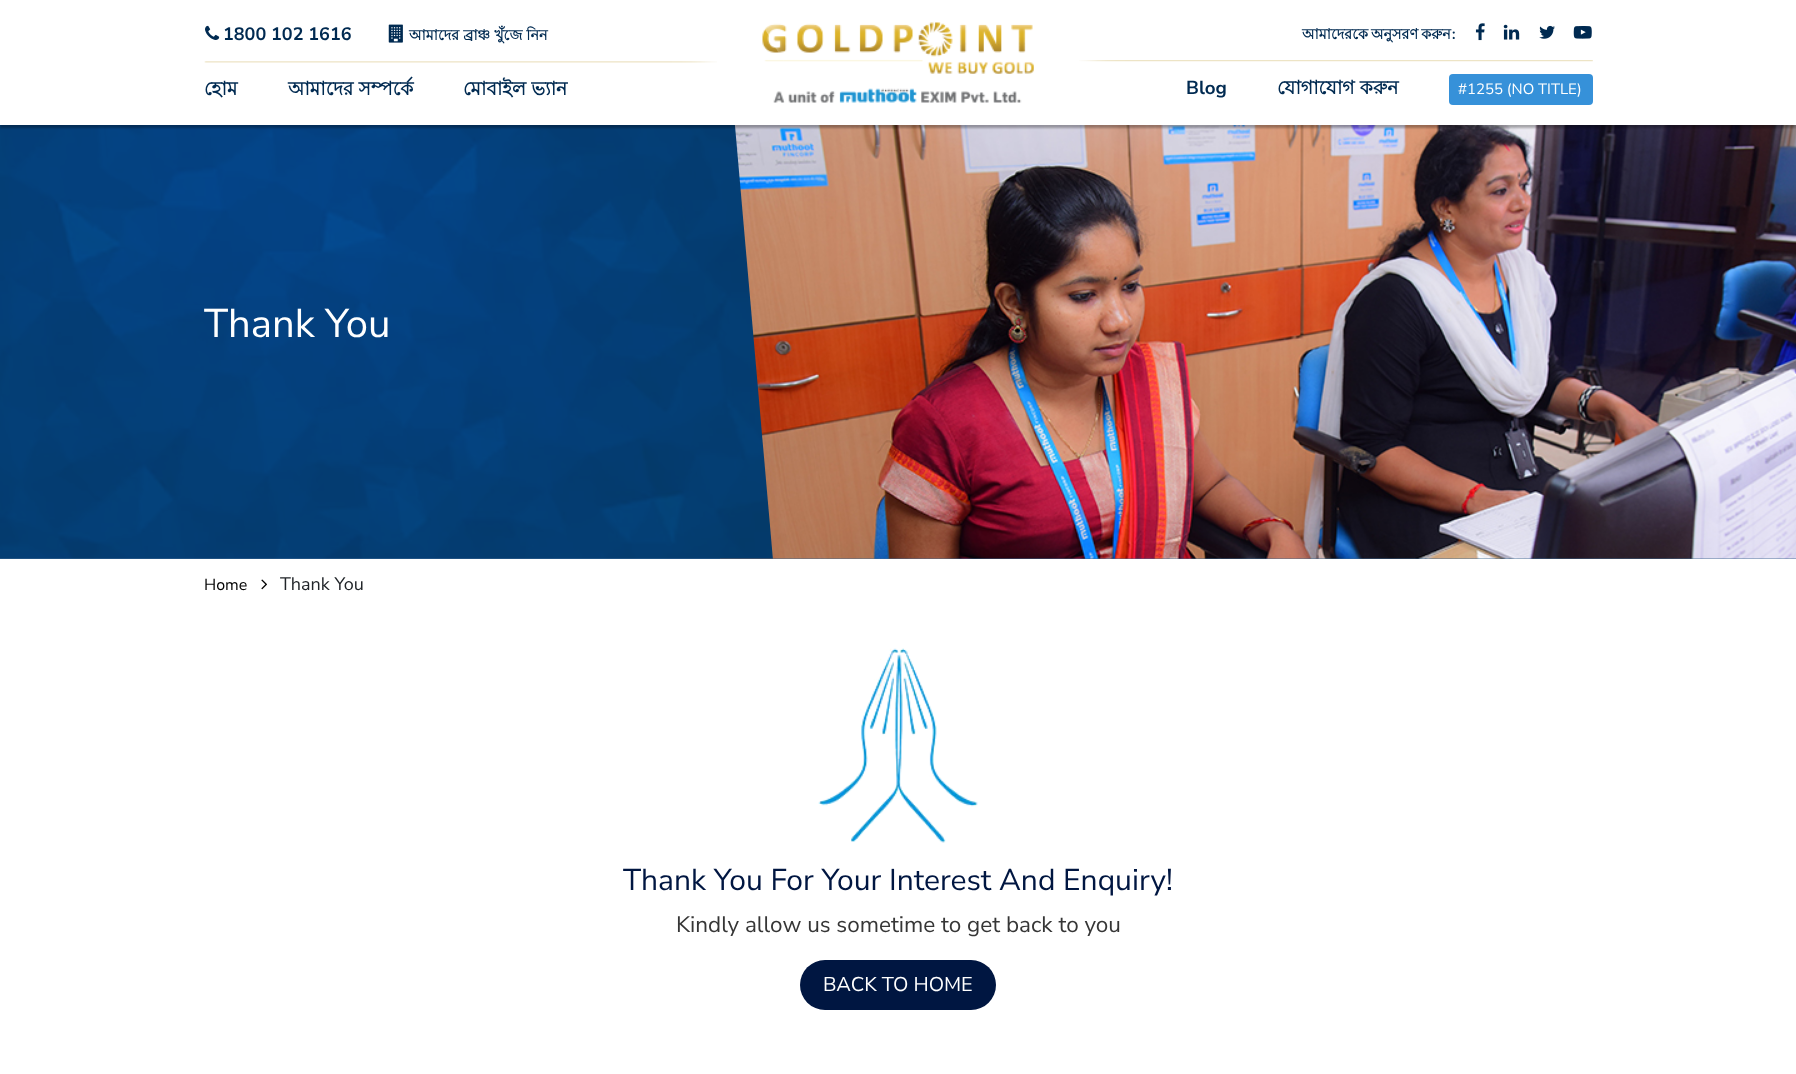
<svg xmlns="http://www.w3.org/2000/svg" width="1796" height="1074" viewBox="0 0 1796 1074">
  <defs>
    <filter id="blur1" x="-50%" y="-200%" width="200%" height="500%"><feGaussianBlur stdDeviation="1"/></filter>
    <clipPath id="clip1"><path d="M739 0H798V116H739ZM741.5 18.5L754.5 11L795 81.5L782 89Z" clip-rule="evenodd"/></clipPath>
    <filter id="blur2" x="-50%" y="-200%" width="200%" height="500%"><feGaussianBlur stdDeviation="7"/></filter>
  </defs>
  <rect width="100%" height="100%" fill="#ffffff"/>
  <image x="0" y="558" width="1796" height="1" href="img10.png"/>
  <image x="720" y="125" width="1076" height="434" href="img12.png"/>
  <image x="0" y="125" width="773" height="434" href="img11.png"/>
  <rect x="0" y="3" width="1796" height="125" fill="#000000" fill-opacity="0.3" filter="url(#blur1)"/>
  <rect x="0" y="1" width="1796" height="124" fill="#ffffff"/>
  <image x="205" y="25" width="15" height="15" href="img1.png"/>
  <text x="223" y="40" font-family="Nunito Sans" font-size="18" font-weight="bold" fill="#002a51">1800 102 1616</text>
  <image x="388" y="24" width="15" height="19" href="img2.png"/>
  <text x="409" y="40" font-family="Lohit Bengali" font-size="14.4" font-weight="bold" fill="#002a51">আমাদের ব্রাঞ্চ খুঁজে নিন</text>
  <image x="204" y="61" width="513" height="2" href="img3.png"/>
  <text x="204" y="95" font-family="Lohit Bengali" font-size="18.75" font-weight="bold" fill="#002a51">হোম</text>
  <text x="288" y="95" font-family="Lohit Bengali" font-size="18.75" font-weight="bold" fill="#002a51">আমাদের সম্পর্কে</text>
  <text x="463" y="95" font-family="Lohit Bengali" font-size="18.75" font-weight="bold" fill="#002a51">মোবাইল ভ্যান</text>
  <image x="762" y="22" width="272" height="81" href="img4.png"/>
  <g clip-path="url(#clip1)">
    <rect x="761" y="13" width="15" height="81" fill="#ffffff" fill-opacity="0.5" filter="url(#blur2)"/>
  </g>
  <text x="1302" y="39" word-spacing="-1" font-family="Lohit Bengali" font-size="14.4" font-weight="bold" fill="#002a51">আমাদেরকে অনুসরণ করুন:</text>
  <image x="1475" y="23" width="10" height="18" href="img5.png"/>
  <image x="1503" y="24" width="17" height="16" href="img6.png"/>
  <image x="1539" y="25" width="16" height="14" href="img7.png"/>
  <image x="1573" y="26" width="19" height="13" href="img8.png"/>
  <image x="1079" y="60" width="514" height="2" href="img9.png"/>
  <text x="1186" y="94" font-family="Nunito Sans" font-size="18.75" font-weight="bold" fill="#002a51">Blog</text>
  <text x="1277" y="94" font-family="Lohit Bengali" font-size="18.75" font-weight="bold" fill="#002a51">যোগাযোগ করুন</text>
  <rect x="1449" y="74" width="144" height="31" rx="4" fill="#3691d9"/>
  <text x="1458" y="94" font-family="Nunito Sans" font-size="15" fill="#ffffff">#1255 (NO TITLE)</text>
  <text x="204" y="337" font-family="Nunito Sans" font-size="40" fill="#ffffff">Thank You</text>
  <text x="204" y="590" font-family="Nunito Sans" font-size="16" fill="#000000">Home</text>
  <image x="261" y="579" width="6" height="11" href="img13.png"/>
  <text x="280" y="590" font-family="Nunito Sans" font-size="18" fill="#212529">Thank You</text>
  <image x="818" y="648" width="160" height="195" href="img14.png"/>
  <text x="623" y="890" font-family="Nunito Sans" font-size="30" fill="#001641">Thank You For Your Interest And Enquiry!</text>
  <text x="676" y="932" font-family="Nunito Sans" font-size="22.5" fill="#363636">Kindly allow us sometime to get back to you</text>
  <rect x="800" y="960" width="196" height="50" rx="25" fill="#001641"/>
  <text x="823" y="991" font-family="Nunito Sans" font-size="20" fill="#ffffff">BACK TO HOME</text>
</svg>
